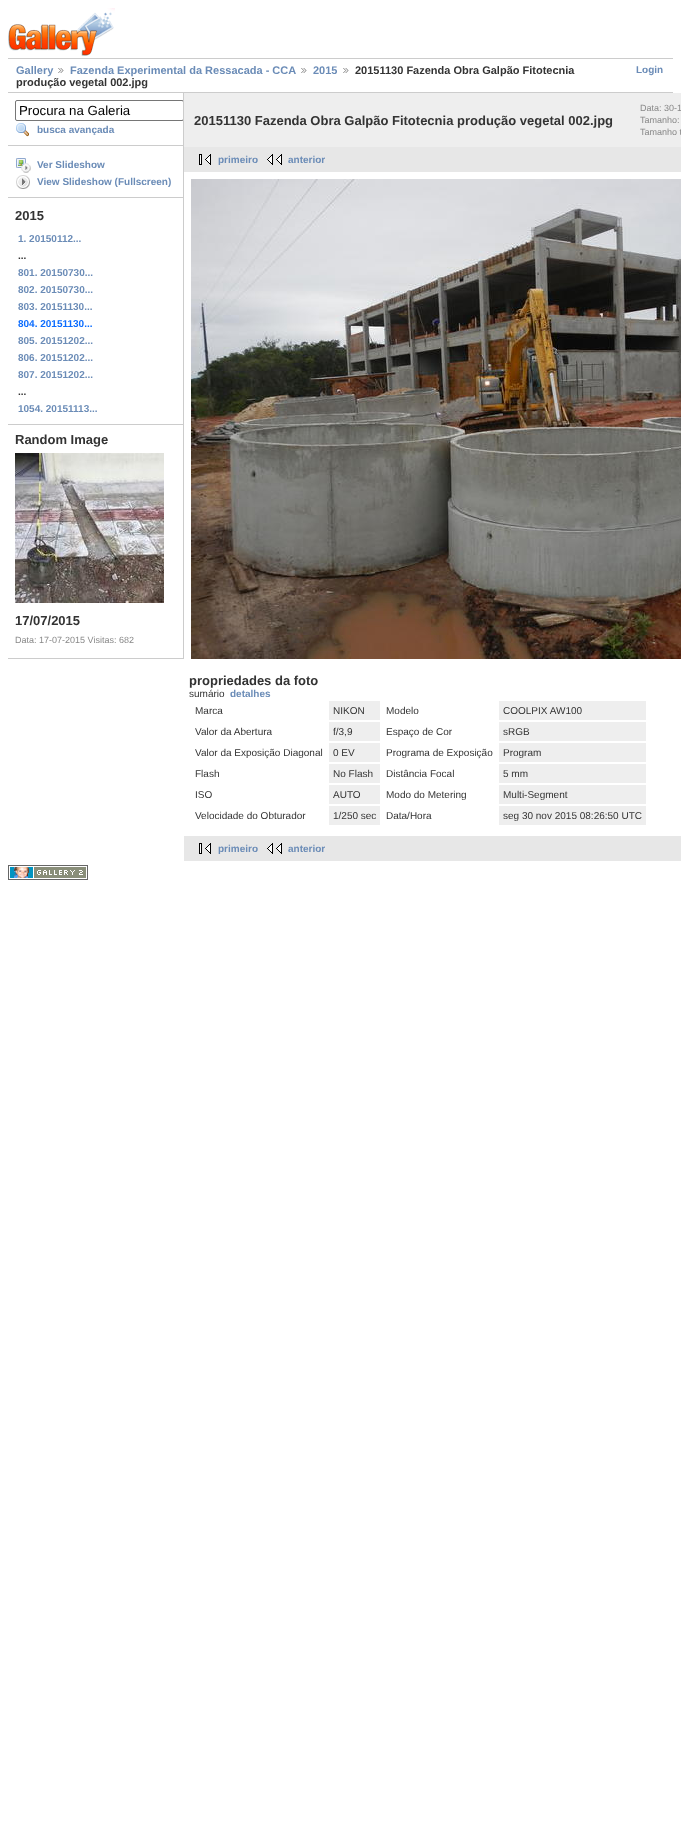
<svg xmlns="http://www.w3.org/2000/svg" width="681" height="1846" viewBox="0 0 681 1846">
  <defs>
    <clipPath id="clip1"><rect x="8" y="93" width="175" height="566"/></clipPath>
  </defs>
  <rect width="100%" height="100%" fill="#ffffff"/>
  <image x="8" y="8" width="107" height="48" href="img1.png"/>
  <rect x="8" y="58" width="665" height="1" fill="#cccccc"/>
  <rect x="8" y="92" width="665" height="1" fill="#cccccc"/>
  <text x="16" y="74" font-family="Liberation Sans" font-size="11" font-weight="bold" fill="#6b8cb7">Gallery</text>
  <image x="58" y="68" width="6" height="5" href="img2.png"/>
  <text x="70" y="74" font-family="Liberation Sans" font-size="11" font-weight="bold" fill="#6b8cb7">Fazenda Experimental da Ressacada - CCA</text>
  <image x="301" y="68" width="6" height="5" href="img2.png"/>
  <text x="313" y="74" font-family="Liberation Sans" font-size="11" font-weight="bold" fill="#6b8cb7">2015</text>
  <image x="343" y="68" width="6" height="5" href="img2.png"/>
  <text x="355" y="74" font-family="Liberation Sans" font-size="11" font-weight="bold" fill="#333333">20151130 Fazenda Obra Galpão Fitotecnia</text>
  <text x="16" y="86" font-family="Liberation Sans" font-size="11" font-weight="bold" fill="#333333">produção vegetal 002.jpg</text>
  <text x="636" y="73" font-family="Liberation Sans" font-size="10" font-weight="bold" fill="#6b8cb7">Login</text>
  <rect x="183" y="93" width="1" height="566" fill="#cccccc"/>
  <rect x="8" y="145" width="175" height="1" fill="#cccccc"/>
  <g clip-path="url(#clip1)">
    <rect x="15.5" y="100.5" width="168" height="20" rx="1.5" fill="none" stroke="#767676"/>
  </g>
  <text x="19" y="115" font-family="Liberation Sans" font-size="13.25" fill="#000000">Procura na Galeria</text>
  <image x="16" y="123" width="13" height="14" href="img3.png"/>
  <text x="37" y="133" font-family="Liberation Sans" font-size="10" font-weight="bold" fill="#6b8cb7">busca avançada</text>
  <rect x="8" y="197" width="175" height="1" fill="#cccccc"/>
  <image x="16" y="158" width="15" height="15" href="img4.png"/>
  <text x="37" y="168" font-family="Liberation Sans" font-size="10" font-weight="bold" fill="#6b8cb7">Ver Slideshow</text>
  <image x="16" y="175" width="14" height="14" href="img5.png"/>
  <text x="37" y="185" font-family="Liberation Sans" font-size="10" font-weight="bold" fill="#6b8cb7">View Slideshow (Fullscreen)</text>
  <rect x="8" y="424" width="175" height="1" fill="#cccccc"/>
  <text x="15" y="220" font-family="Liberation Sans" font-size="13" font-weight="bold" fill="#333333">2015</text>
  <text x="18" y="242" font-family="Liberation Sans" font-size="10" font-weight="bold" fill="#6b8cb7">1. 20150112...</text>
  <text x="18" y="259" font-family="Liberation Sans" font-size="10" font-weight="bold" fill="#333333">...</text>
  <text x="18" y="276" font-family="Liberation Sans" font-size="10" font-weight="bold" fill="#6b8cb7">801. 20150730...</text>
  <text x="18" y="293" font-family="Liberation Sans" font-size="10" font-weight="bold" fill="#6b8cb7">802. 20150730...</text>
  <text x="18" y="310" font-family="Liberation Sans" font-size="10" font-weight="bold" fill="#6b8cb7">803. 20151130...</text>
  <text x="18" y="327" font-family="Liberation Sans" font-size="10" font-weight="bold" fill="#0b6cff">804. 20151130...</text>
  <text x="18" y="344" font-family="Liberation Sans" font-size="10" font-weight="bold" fill="#6b8cb7">805. 20151202...</text>
  <text x="18" y="361" font-family="Liberation Sans" font-size="10" font-weight="bold" fill="#6b8cb7">806. 20151202...</text>
  <text x="18" y="378" font-family="Liberation Sans" font-size="10" font-weight="bold" fill="#6b8cb7">807. 20151202...</text>
  <text x="18" y="395" font-family="Liberation Sans" font-size="10" font-weight="bold" fill="#333333">...</text>
  <text x="18" y="412" font-family="Liberation Sans" font-size="10" font-weight="bold" fill="#6b8cb7">1054. 20151113...</text>
  <rect x="8" y="658" width="175" height="1" fill="#cccccc"/>
  <text x="15" y="444" font-family="Liberation Sans" font-size="13" font-weight="bold" fill="#333333">Random Image</text>
  <image x="15" y="453" width="149" height="150" href="img6.png"/>
  <text x="15" y="625" font-family="Liberation Sans" font-size="13" font-weight="bold" fill="#333333">17/07/2015</text>
  <text x="15" y="643" font-family="Liberation Sans" font-size="9" fill="#888888">Data: 17-07-2015 Visitas: 682</text>
  <rect x="184" y="93" width="497" height="54" fill="#eeeeee"/>
  <text x="194" y="125" font-family="Liberation Sans" font-size="13" font-weight="bold" fill="#333333">20151130 Fazenda Obra Galpão Fitotecnia produção vegetal 002.jpg</text>
  <text x="640" y="111" font-family="Liberation Sans" font-size="9" fill="#888888">Data: 30-1</text>
  <text x="640" y="123" font-family="Liberation Sans" font-size="9" fill="#888888">Tamanho:</text>
  <text x="640" y="135" font-family="Liberation Sans" font-size="9" fill="#888888">Tamanho t</text>
  <rect x="184" y="147" width="497" height="25" fill="#e7e7e7"/>
  <image x="199" y="154" width="12" height="11" href="img7.png"/>
  <text x="218" y="163" font-family="Liberation Sans" font-size="10" font-weight="bold" fill="#6b8cb7">primeiro</text>
  <image x="267" y="154" width="15" height="11" href="img8.png"/>
  <text x="288" y="163" font-family="Liberation Sans" font-size="10" font-weight="bold" fill="#6b8cb7">anterior</text>
  <image x="191" y="179" width="490" height="480" href="img9.png"/>
  <text x="189" y="685" font-family="Liberation Sans" font-size="13" font-weight="bold" fill="#333333">propriedades da foto</text>
  <text x="189" y="697" font-family="Liberation Sans" font-size="10" fill="#333333">sumário</text>
  <text x="230" y="697" font-family="Liberation Sans" font-size="10" font-weight="bold" fill="#6b8cb7">detalhes</text>
  <text x="195" y="714" font-family="Liberation Sans" font-size="10" fill="#333333">Marca</text>
  <rect x="329" y="701" width="51" height="19" fill="#eeeeee"/>
  <text x="333" y="714" font-family="Liberation Sans" font-size="10" fill="#333333">NIKON</text>
  <text x="386" y="714" font-family="Liberation Sans" font-size="10" fill="#333333">Modelo</text>
  <rect x="499" y="701" width="147" height="19" fill="#eeeeee"/>
  <text x="503" y="714" font-family="Liberation Sans" font-size="10" fill="#333333">COOLPIX AW100</text>
  <text x="195" y="735" font-family="Liberation Sans" font-size="10" fill="#333333">Valor da Abertura</text>
  <rect x="329" y="722" width="51" height="19" fill="#eeeeee"/>
  <text x="333" y="735" font-family="Liberation Sans" font-size="10" fill="#333333">f/3,9</text>
  <text x="386" y="735" font-family="Liberation Sans" font-size="10" fill="#333333">Espaço de Cor</text>
  <rect x="499" y="722" width="147" height="19" fill="#eeeeee"/>
  <text x="503" y="735" font-family="Liberation Sans" font-size="10" fill="#333333">sRGB</text>
  <text x="195" y="756" font-family="Liberation Sans" font-size="10" fill="#333333">Valor da Exposição Diagonal</text>
  <rect x="329" y="743" width="51" height="19" fill="#eeeeee"/>
  <text x="333" y="756" font-family="Liberation Sans" font-size="10" fill="#333333">0 EV</text>
  <text x="386" y="756" font-family="Liberation Sans" font-size="10" fill="#333333">Programa de Exposição</text>
  <rect x="499" y="743" width="147" height="19" fill="#eeeeee"/>
  <text x="503" y="756" font-family="Liberation Sans" font-size="10" fill="#333333">Program</text>
  <text x="195" y="777" font-family="Liberation Sans" font-size="10" fill="#333333">Flash</text>
  <rect x="329" y="764" width="51" height="19" fill="#eeeeee"/>
  <text x="333" y="777" font-family="Liberation Sans" font-size="10" fill="#333333">No Flash</text>
  <text x="386" y="777" font-family="Liberation Sans" font-size="10" fill="#333333">Distância Focal</text>
  <rect x="499" y="764" width="147" height="19" fill="#eeeeee"/>
  <text x="503" y="777" font-family="Liberation Sans" font-size="10" fill="#333333">5 mm</text>
  <text x="195" y="798" font-family="Liberation Sans" font-size="10" fill="#333333">ISO</text>
  <rect x="329" y="785" width="51" height="19" fill="#eeeeee"/>
  <text x="333" y="798" font-family="Liberation Sans" font-size="10" fill="#333333">AUTO</text>
  <text x="386" y="798" font-family="Liberation Sans" font-size="10" fill="#333333">Modo do Metering</text>
  <rect x="499" y="785" width="147" height="19" fill="#eeeeee"/>
  <text x="503" y="798" font-family="Liberation Sans" font-size="10" fill="#333333">Multi-Segment</text>
  <text x="195" y="819" font-family="Liberation Sans" font-size="10" fill="#333333">Velocidade do Obturador</text>
  <rect x="329" y="806" width="51" height="19" fill="#eeeeee"/>
  <text x="333" y="819" font-family="Liberation Sans" font-size="10" fill="#333333">1/250 sec</text>
  <text x="386" y="819" font-family="Liberation Sans" font-size="10" fill="#333333">Data/Hora</text>
  <rect x="499" y="806" width="147" height="19" fill="#eeeeee"/>
  <text x="503" y="819" font-family="Liberation Sans" font-size="10" fill="#333333">seg 30 nov 2015 08:26:50 UTC</text>
  <rect x="184" y="836" width="497" height="25" fill="#e7e7e7"/>
  <image x="199" y="843" width="12" height="11" href="img7.png"/>
  <text x="218" y="852" font-family="Liberation Sans" font-size="10" font-weight="bold" fill="#6b8cb7">primeiro</text>
  <image x="267" y="843" width="15" height="11" href="img8.png"/>
  <text x="288" y="852" font-family="Liberation Sans" font-size="10" font-weight="bold" fill="#6b8cb7">anterior</text>
  <image x="8" y="865" width="80" height="15" href="img10.png"/>
</svg>
